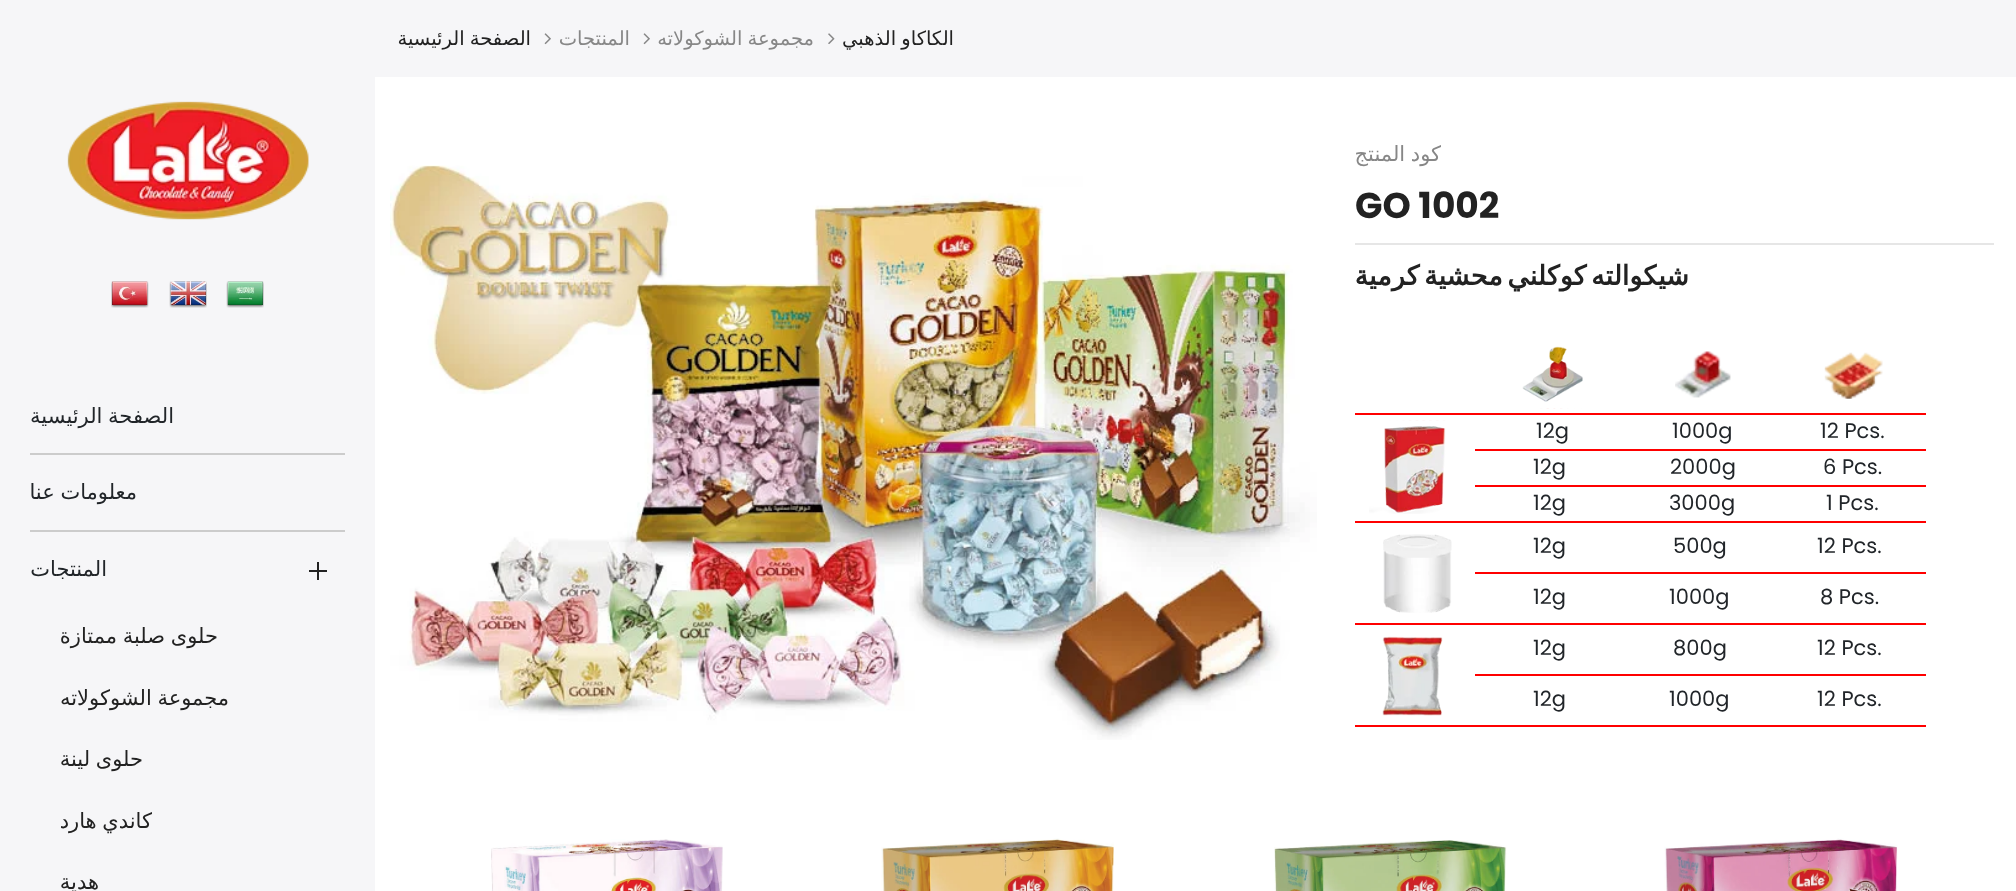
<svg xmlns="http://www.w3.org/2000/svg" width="2016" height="891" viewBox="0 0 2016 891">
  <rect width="100%" height="100%" fill="#ffffff"/>
  <rect x="375" y="0" width="1641" height="77" fill="#f6f6f8"/>
  <text x="954" y="45" word-spacing="-1" font-family="DejaVu Sans" font-size="19.5" direction="rtl" fill="#222222">الكاكاو الذهبي</text>
  <image x="828" y="33" width="7" height="11" href="img1.png"/>
  <text x="814" y="45" word-spacing="-1" font-family="DejaVu Sans" font-size="19.5" direction="rtl" fill="#878787">مجموعة الشوكولاته</text>
  <image x="643" y="33" width="7" height="12" href="img2.png"/>
  <text x="630" y="45" font-family="DejaVu Sans" font-size="19.5" direction="rtl" fill="#878787">المنتجات</text>
  <image x="544" y="33" width="7" height="12" href="img2.png"/>
  <text x="531" y="45" word-spacing="-1" font-family="DejaVu Sans" font-size="19.5" direction="rtl" fill="#222222">الصفحة الرئيسية</text>
  <text x="1441" y="161" word-spacing="-1" font-family="DejaVu Sans" font-size="21" direction="rtl" fill="#878787">كود المنتج</text>
  <text x="1355" y="218" font-family="Poppins" font-size="36" font-weight="bold" fill="#222222">GO 1002</text>
  <rect x="1355" y="243" width="639" height="2" fill="#e6e6e6"/>
  <text x="1689" y="285" word-spacing="-4" font-family="DejaVu Sans" font-size="27" font-weight="bold" direction="rtl" fill="#222222">شيكوالته كوكلني محشية كرمية</text>
  <image x="1675" y="351" width="56" height="47" href="img3.png"/>
  <image x="1522" y="346" width="61" height="63" href="img4.png"/>
  <rect x="1355" y="413" width="571" height="2" fill="#ff0000"/>
  <image x="1824" y="352" width="59" height="47" href="img5.png"/>
  <rect x="1475" y="449" width="451" height="2" fill="#ff0000"/>
  <text x="1820" y="438" font-family="Poppins" font-size="21" fill="#212529">12 Pcs.</text>
  <text x="1672" y="438" font-family="Poppins" font-size="21" fill="#212529">1000g</text>
  <text x="1536" y="438" font-family="Poppins" font-size="21" fill="#212529">12g</text>
  <image x="1369" y="420" width="77" height="94" href="img6.png"/>
  <rect x="1475" y="485" width="451" height="2" fill="#ff0000"/>
  <text x="1823" y="474" font-family="Poppins" font-size="21" fill="#212529">6 Pcs.</text>
  <text x="1670" y="474" font-family="Poppins" font-size="21" fill="#212529">2000g</text>
  <text x="1533" y="474" font-family="Poppins" font-size="21" fill="#212529">12g</text>
  <rect x="1355" y="521" width="571" height="2" fill="#ff0000"/>
  <text x="1826" y="510" font-family="Poppins" font-size="21" fill="#212529">1 Pcs.</text>
  <text x="1669" y="510" font-family="Poppins" font-size="21" fill="#212529">3000g</text>
  <text x="1533" y="510" font-family="Poppins" font-size="21" fill="#212529">12g</text>
  <rect x="1475" y="572" width="451" height="2" fill="#ff0000"/>
  <text x="1817" y="553" font-family="Poppins" font-size="21" fill="#212529">12 Pcs.</text>
  <text x="1673" y="553" font-family="Poppins" font-size="21" fill="#212529">500g</text>
  <text x="1533" y="553" font-family="Poppins" font-size="21" fill="#212529">12g</text>
  <image x="1383" y="534" width="69" height="79" href="img7.png"/>
  <rect x="1355" y="623" width="571" height="2" fill="#ff0000"/>
  <text x="1820" y="604" font-family="Poppins" font-size="21" fill="#212529">8 Pcs.</text>
  <text x="1669" y="604" font-family="Poppins" font-size="21" fill="#212529">1000g</text>
  <text x="1533" y="604" font-family="Poppins" font-size="21" fill="#212529">12g</text>
  <rect x="1475" y="674" width="451" height="2" fill="#ff0000"/>
  <text x="1817" y="655" font-family="Poppins" font-size="21" fill="#212529">12 Pcs.</text>
  <text x="1673" y="655" font-family="Poppins" font-size="21" fill="#212529">800g</text>
  <text x="1533" y="655" font-family="Poppins" font-size="21" fill="#212529">12g</text>
  <image x="1382" y="636" width="61" height="80" href="img8.png"/>
  <rect x="1355" y="725" width="571" height="2" fill="#ff0000"/>
  <text x="1817" y="706" font-family="Poppins" font-size="21" fill="#212529">12 Pcs.</text>
  <text x="1669" y="706" font-family="Poppins" font-size="21" fill="#212529">1000g</text>
  <text x="1533" y="706" font-family="Poppins" font-size="21" fill="#212529">12g</text>
  <image x="390" y="165" width="927" height="575" href="img9.png"/>
  <image x="1664" y="838" width="234" height="53" href="img10.png"/>
  <image x="1274" y="840" width="233" height="51" href="img11.png"/>
  <image x="881" y="838" width="233" height="53" href="img12.png"/>
  <image x="491" y="839" width="232" height="52" href="img13.png"/>
  <rect x="0" y="0" width="375" height="891" fill="#f6f6f8"/>
  <image x="67" y="101" width="242" height="119" href="img14.png"/>
  <image x="226" y="281" width="38" height="27" href="img15.png"/>
  <image x="169" y="281" width="38" height="27" href="img16.png"/>
  <image x="111" y="281" width="38" height="27" href="img17.png"/>
  <rect x="30" y="453" width="315" height="2" fill="#cccccc"/>
  <text x="174" y="423" word-spacing="-1" font-family="DejaVu Sans" font-size="21" direction="rtl" fill="#212529">الصفحة الرئيسية</text>
  <rect x="30" y="530" width="315" height="2" fill="#cccccc"/>
  <text x="137" y="499" word-spacing="-1" font-family="DejaVu Sans" font-size="21" direction="rtl" fill="#212529">معلومات عنا</text>
  <rect x="309" y="570" width="18" height="2" fill="#222222"/>
  <rect x="317" y="562" width="2" height="18" fill="#222222"/>
  <text x="107" y="576" font-family="DejaVu Sans" font-size="21" direction="rtl" fill="#212529">المنتجات</text>
  <text x="218" y="643" word-spacing="-1" font-family="DejaVu Sans" font-size="21" direction="rtl" fill="#222222">حلوى صلبة ممتازة</text>
  <text x="229" y="705" word-spacing="-1" font-family="DejaVu Sans" font-size="21" direction="rtl" fill="#222222">مجموعة الشوكولاته</text>
  <text x="143" y="766" word-spacing="-1" font-family="DejaVu Sans" font-size="21" direction="rtl" fill="#222222">حلوى لينة</text>
  <text x="152" y="828" word-spacing="-1" font-family="DejaVu Sans" font-size="21" direction="rtl" fill="#222222">كاندي هارد</text>
  <text x="99" y="889" font-family="DejaVu Sans" font-size="21" direction="rtl" fill="#222222">هدية</text>
</svg>
